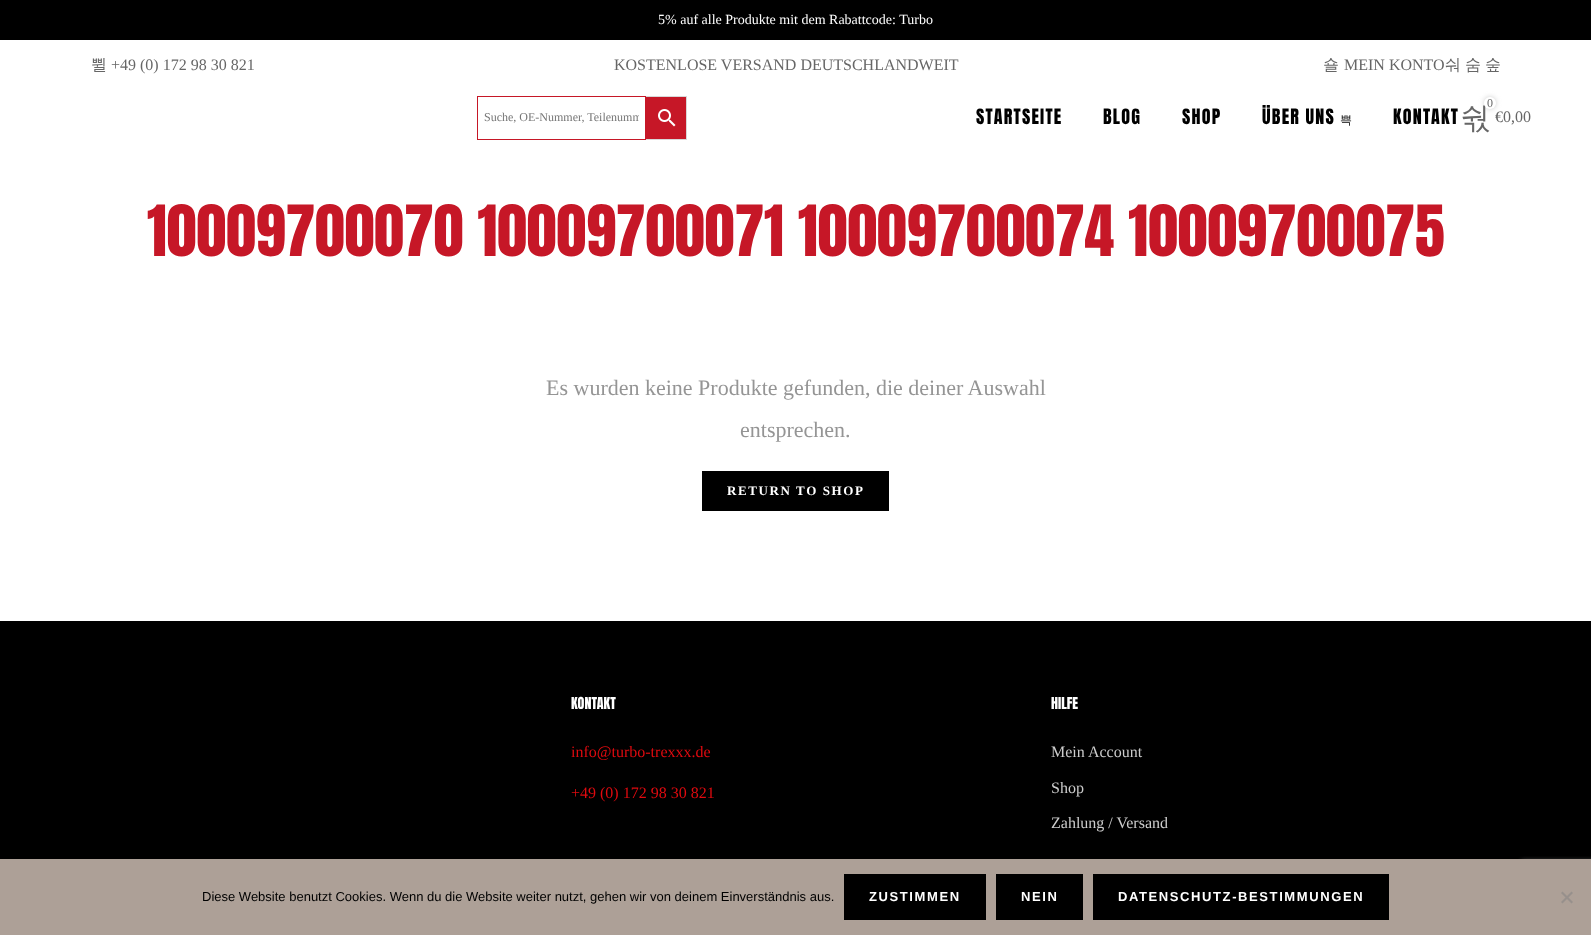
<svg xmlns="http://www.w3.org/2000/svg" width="1591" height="935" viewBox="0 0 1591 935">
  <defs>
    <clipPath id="clip1"><rect x="484" y="110" width="155" height="15"/></clipPath>
    <filter id="blur1" x="-50%" y="-200%" width="200%" height="500%"><feGaussianBlur stdDeviation="2.5"/></filter>
  </defs>
  <rect width="100%" height="100%" fill="#ffffff"/>
  <rect x="0" y="0" width="1591" height="40" fill="#000000"/>
  <text x="658" y="24" font-family="Liberation Serif" font-size="14" fill="#ffffff">5% auf alle Produkte mit dem Rabattcode: Turbo</text>
  <text x="91" y="70" font-family="WenQuanYi Zen Hei" font-size="16" font-weight="500" fill="#666666">쀨</text>
  <text x="111" y="70" font-family="Liberation Serif" font-size="16" fill="#666666">+49 (0) 172 98 30 821</text>
  <text x="614" y="70" font-family="Liberation Serif" font-size="16" fill="#666666">KOSTENLOSE VERSAND DEUTSCHLANDWEIT</text>
  <text x="1323" y="70" font-family="WenQuanYi Zen Hei" font-size="16" font-weight="500" fill="#666666">숄</text>
  <text x="1344" y="70" font-family="Liberation Serif" font-size="16" fill="#666666">MEIN KONTO</text>
  <text x="1445" y="70" font-family="WenQuanYi Zen Hei" font-size="16" font-weight="500" fill="#666666">숴</text>
  <text x="1465" y="70" font-family="WenQuanYi Zen Hei" font-size="16" font-weight="500" fill="#666666">숨</text>
  <text x="1485" y="70" font-family="WenQuanYi Zen Hei" font-size="16" font-weight="500" fill="#666666">숲</text>
  <rect x="645.5" y="96.5" width="41" height="43" fill="#c61727" stroke="#d8d8d8"/>
  <rect x="477.5" y="96.5" width="168" height="43" fill="none" stroke="#c61727"/>
  <g clip-path="url(#clip1)">
    <text x="484" y="121" font-family="Liberation Serif" font-size="12" fill="#757575">Suche, OE-Nummer, Teilenumm</text>
  </g>
  <image x="658" y="109" width="18" height="18" href="img1.png"/>
  <text x="976" y="124" font-family="Anton" font-size="18" letter-spacing="1.25" fill="#000000">STARTSEITE</text>
  <text x="1103" y="124" font-family="Anton" font-size="18" letter-spacing="1.25" fill="#000000">BLOG</text>
  <text x="1182" y="124" font-family="Anton" font-size="18" letter-spacing="1.25" fill="#000000">SHOP</text>
  <text x="1262" y="124" font-family="Anton" font-size="18" letter-spacing="1.25" fill="#000000">ÜBER UNS</text>
  <text x="1340" y="124" font-family="WenQuanYi Zen Hei" font-size="12" font-weight="500" letter-spacing="1.25" fill="#000000">쁙</text>
  <text x="1393" y="124" font-family="Anton" font-size="18" letter-spacing="1.25" fill="#000000">KONTAKT</text>
  <rect x="1484" y="97" width="12" height="12" rx="6" fill="#cccccc" filter="url(#blur1)"/>
  <text x="1460" y="128" font-family="WenQuanYi Zen Hei" font-size="30" font-weight="500" fill="#666666">숷</text>
  <circle cx="1490" cy="103" r="6" fill="#ffffff"/>
  <text x="1487" y="107" font-family="Liberation Serif" font-size="12" fill="#666666">0</text>
  <text x="1495" y="122" font-family="Liberation Serif" font-size="16" fill="#666666">€0,00</text>
  <text x="147" y="256" font-family="Anton" font-size="60" fill="#c61727">10009700070 10009700071 10009700074 10009700075</text>
  <text x="546" y="395" font-family="Liberation Serif" font-size="22" fill="#959595">Es wurden keine Produkte gefunden, die deiner Auswahl</text>
  <text x="740" y="437" font-family="Liberation Serif" font-size="22" fill="#959595">entsprechen.</text>
  <rect x="702" y="471" width="187" height="40" fill="#000000"/>
  <text x="727" y="495" font-family="Liberation Serif" font-size="13" font-weight="bold" letter-spacing="1.6" fill="#ffffff">RETURN TO SHOP</text>
  <rect x="0" y="621" width="1591" height="238" fill="#000000"/>
  <text x="571" y="709" font-family="Anton" font-size="14" fill="#ffffff">KONTAKT</text>
  <text x="571" y="757" font-family="Liberation Serif" font-size="16" fill="#df0a0f">info@turbo-trexxx.de</text>
  <text x="571" y="798" font-family="Liberation Serif" font-size="16" fill="#df0a0f">+49 (0) 172 98 30 821</text>
  <text x="1051" y="709" font-family="Anton" font-size="14" fill="#ffffff">HILFE</text>
  <text x="1051" y="757" font-family="Liberation Serif" font-size="16" fill="#cccccc">Mein Account</text>
  <text x="1051" y="793" font-family="Liberation Serif" font-size="16" fill="#cccccc">Shop</text>
  <text x="1051" y="828" font-family="Liberation Serif" font-size="16" fill="#cccccc">Zahlung / Versand</text>
  <rect x="1521" y="861" width="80" height="60" rx="2" fill="#808080" filter="url(#blur1)"/>
  <rect x="0" y="859" width="1591" height="76" fill="#ada097"/>
  <text x="202" y="901" font-family="Liberation Sans" font-size="13" fill="#000000">Diese Website benutzt Cookies. Wenn du die Website weiter nutzt, gehen wir von deinem Einverständnis aus.</text>
  <rect x="844" y="874" width="142" height="46" fill="#000000"/>
  <text x="869" y="901" font-family="Liberation Sans" font-size="13" font-weight="bold" letter-spacing="1.6" fill="#ffffff">ZUSTIMMEN</text>
  <rect x="996" y="874" width="87" height="46" fill="#000000"/>
  <text x="1021" y="901" font-family="Liberation Sans" font-size="13" font-weight="bold" letter-spacing="1.6" fill="#ffffff">NEIN</text>
  <rect x="1093" y="874" width="296" height="46" fill="#000000"/>
  <text x="1118" y="901" font-family="Liberation Sans" font-size="13" font-weight="bold" letter-spacing="1.6" fill="#ffffff">DATENSCHUTZ-BESTIMMUNGEN</text>
  <path d="M1571.5 891.5L1573 893L1562.5 903.5L1561 902Z" fill="#97908c"/>
  <path d="M1561 893L1562.5 891.5L1573 902L1571.5 903.5Z" fill="#97908c"/>
</svg>
